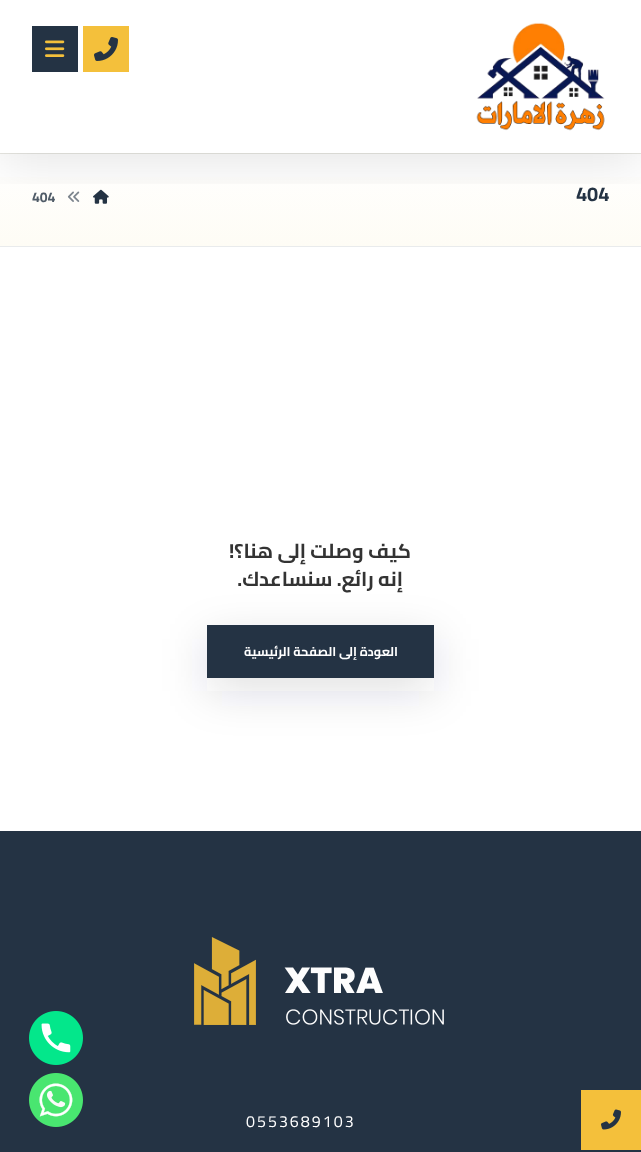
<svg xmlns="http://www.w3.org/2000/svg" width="641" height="1152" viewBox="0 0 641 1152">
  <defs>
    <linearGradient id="g1" gradientUnits="userSpaceOnUse" x1="321" y1="246" x2="321" y2="154"><stop offset="0" stop-color="#fefcf5"/><stop offset="1" stop-color="#ffffff"/></linearGradient>
    <clipPath id="clip1"><rect x="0" y="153" width="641" height="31"/></clipPath>
    <filter id="blur1" x="-50%" y="-200%" width="200%" height="500%"><feGaussianBlur stdDeviation="25"/></filter>
    <filter id="blur2" x="-50%" y="-200%" width="200%" height="500%"><feGaussianBlur stdDeviation="22.5"/></filter>
  </defs>
  <rect width="100%" height="100%" fill="#ffffff"/>
  <rect x="0" y="177" width="641" height="69" fill="url(#g1)"/>
  <rect x="0" y="153" width="641" height="1" fill="#e8e8e3"/>
  <image x="93" y="189" width="16" height="15" href="img4.png"/>
  <image x="67" y="191" width="13" height="11" href="img5.png"/>
  <g clip-path="url(#clip1)">
    <rect x="0" y="10" width="641" height="153" fill="#000000" fill-opacity="0.1" filter="url(#blur1)"/>
  </g>
  <image x="476" y="22" width="129" height="109" href="img1.png"/>
  <rect x="83" y="26" width="46" height="46" fill="#f4c03b"/>
  <image x="94" y="37" width="24" height="24" href="img2.png"/>
  <rect x="32" y="26" width="46" height="46" fill="#243344"/>
  <image x="45" y="40" width="20" height="17" href="img3.png"/>
  <rect x="0" y="246" width="641" height="1" fill="#e9ebec"/>
  <text x="576" y="201" font-family="Cairo" font-size="20" font-weight="bold" fill="#243344">404</text>
  <text x="32" y="202" font-family="Cairo" font-size="14" font-weight="bold" fill="#505c68">404</text>
  <text x="411" y="558" font-family="Cairo" font-size="20" font-weight="bold" direction="rtl" fill="#333333">كيف وصلت إلى هنا؟!</text>
  <text x="403" y="586" font-family="Cairo" font-size="20" font-weight="bold" direction="rtl" fill="#333333">إنه رائع. سنساعدك.</text>
  <rect x="207" y="639" width="227" height="52" fill="#243344" fill-opacity="0.15" filter="url(#blur2)"/>
  <rect x="207" y="625" width="227" height="53" fill="#243344"/>
  <text x="398" y="656" font-family="Cairo" font-size="12.6" font-weight="bold" direction="rtl" fill="#ffffff">العودة إلى الصفحة الرئيسية</text>
  <rect x="0" y="831" width="641" height="321" fill="#243344"/>
  <image x="194" y="937" width="250" height="88" href="img6.png"/>
  <rect x="581" y="1090" width="60" height="60" fill="#f4c03b"/>
  <image x="601" y="1109" width="20" height="21" href="img7.png"/>
  <text x="246" y="1127" font-family="Cairo" font-size="16" letter-spacing="2" fill="#ffffff">0553689103</text>
  <image x="29" y="1011" width="54" height="54" href="img8.png"/>
  <image x="29" y="1073" width="54" height="54" href="img9.png"/>
</svg>
